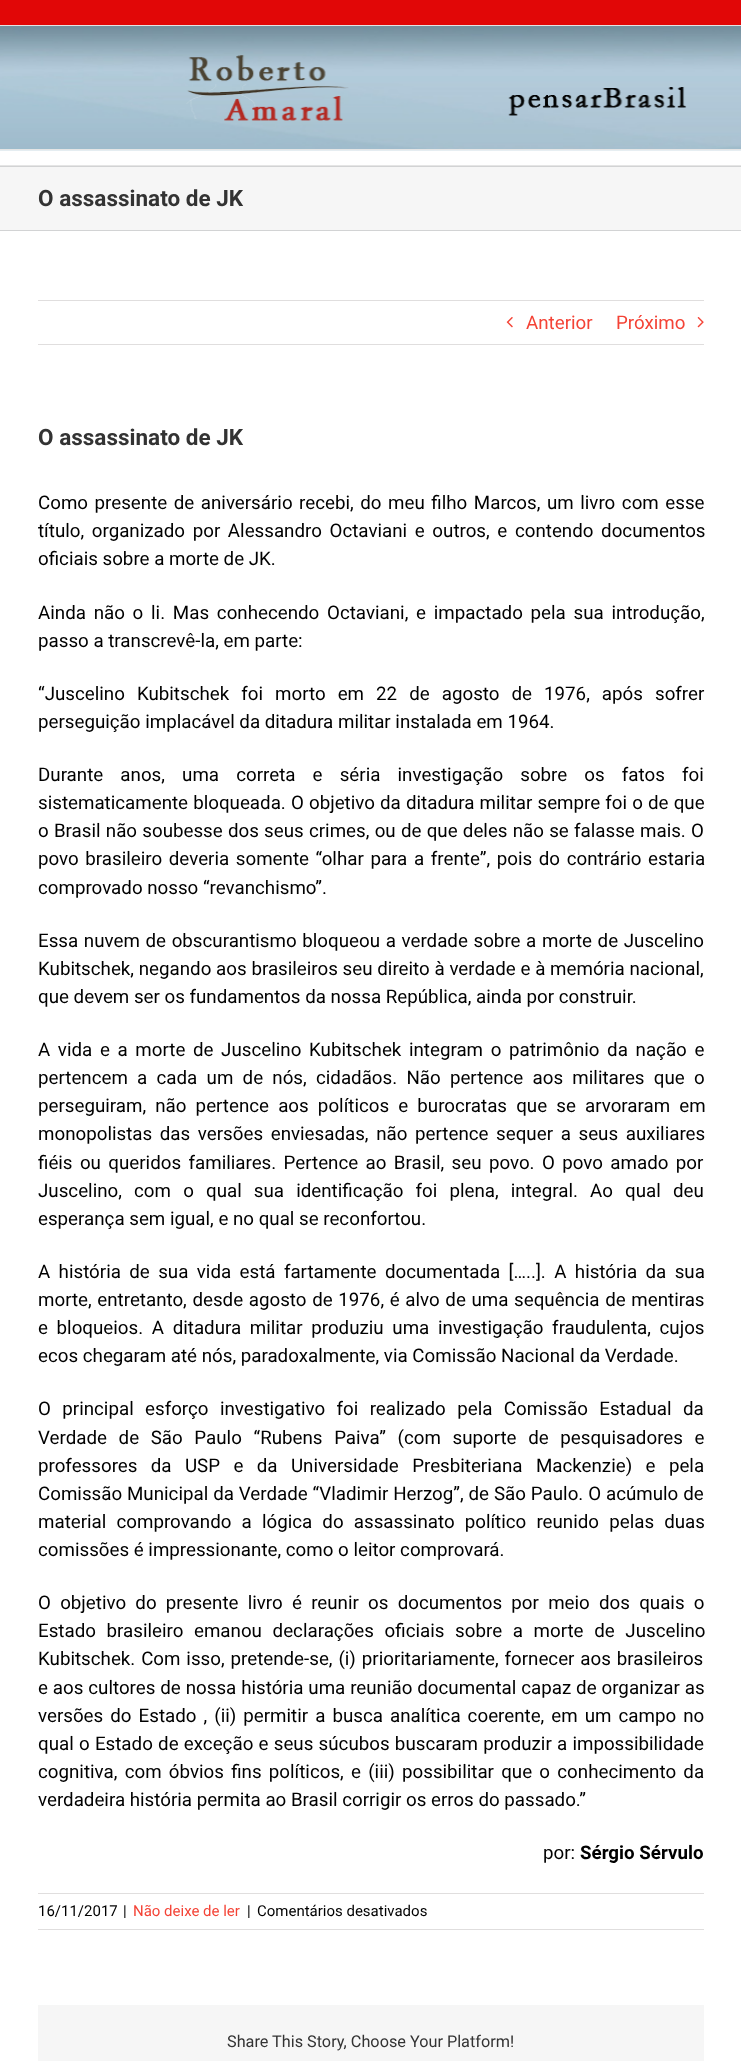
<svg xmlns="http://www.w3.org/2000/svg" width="741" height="2061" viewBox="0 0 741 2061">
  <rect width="100%" height="100%" fill="#ffffff"/>
  <image x="740" y="26" width="1" height="123" href="img1.png"/>
  <rect x="0" y="0" width="741" height="25" fill="#e10707"/>
  <rect x="0" y="25" width="741" height="1" fill="#e5e5e5"/>
  <image x="0" y="26" width="741" height="125" href="img2.png"/>
  <rect x="0" y="149" width="741" height="1" fill="#e5e5e5"/>
  <image x="186" y="55" width="501" height="66" href="img3.png"/>
  <rect x="0" y="165" width="741" height="1" fill="#e5e5e5"/>
  <rect x="0" y="167" width="741" height="63" fill="#f6f6f6"/>
  <rect x="0" y="166" width="741" height="1" fill="#d2d3d4"/>
  <rect x="0" y="230" width="741" height="1" fill="#d2d3d4"/>
  <text x="38" y="206" font-family="Roboto" font-size="22.5" font-weight="bold" fill="#333333">O assassinato de JK</text>
  <rect x="38" y="300" width="666" height="1" fill="#e0dede"/>
  <rect x="38" y="344" width="666" height="1" fill="#e0dede"/>
  <image x="506" y="317" width="7" height="11" href="img4.png"/>
  <text x="526" y="329" font-family="Roboto" font-size="18.75" fill="#f44336">Anterior</text>
  <text x="616" y="329" font-family="Roboto" font-size="18.75" fill="#f44336">Próximo</text>
  <image x="697" y="317" width="7" height="11" href="img5.png"/>
  <text x="38" y="445" font-family="Roboto" font-size="22.5" font-weight="bold" fill="#333333">O assassinato de JK</text>
  <text x="38" y="509" word-spacing="1.9" font-family="Roboto" font-size="18.75" fill="#000000">Como presente de aniversário recebi, do meu filho Marcos, um livro com esse</text>
  <text x="38" y="537" word-spacing="3" font-family="Roboto" font-size="18.75" fill="#000000">título, organizado por Alessandro Octaviani e outros, e contendo documentos</text>
  <text x="38" y="565" font-family="Roboto" font-size="18.75" fill="#000000">oficiais sobre a morte de JK.</text>
  <text x="38" y="619" word-spacing="3.1" font-family="Roboto" font-size="18.75" fill="#000000">Ainda não o li. Mas conhecendo Octaviani, e impactado pela sua introdução,</text>
  <text x="38" y="647" font-family="Roboto" font-size="18.75" fill="#000000">passo a transcrevê-la, em parte:</text>
  <text x="38" y="700" word-spacing="7.4" font-family="Roboto" font-size="18.75" fill="#000000">“Juscelino Kubitschek foi morto em 22 de agosto de 1976, após sofrer</text>
  <text x="38" y="728" font-family="Roboto" font-size="18.75" fill="#000000">perseguição implacável da ditadura militar instalada em 1964.</text>
  <text x="38" y="781" word-spacing="12.5" font-family="Roboto" font-size="18.75" fill="#000000">Durante anos, uma correta e séria investigação sobre os fatos foi</text>
  <text x="38" y="809" word-spacing="0.5" font-family="Roboto" font-size="18.75" fill="#000000">sistematicamente bloqueada. O objetivo da ditadura militar sempre foi o de que</text>
  <text x="38" y="837" word-spacing="0.6" font-family="Roboto" font-size="18.75" fill="#000000">o Brasil não soubesse dos seus crimes, ou de que deles não se falasse mais. O</text>
  <text x="38" y="865" word-spacing="2" font-family="Roboto" font-size="18.75" fill="#000000">povo brasileiro deveria somente “olhar para a frente”, pois do contrário estaria</text>
  <text x="38" y="894" font-family="Roboto" font-size="18.75" fill="#000000">comprovado nosso “revanchismo”.</text>
  <text x="38" y="947" word-spacing="1" font-family="Roboto" font-size="18.75" fill="#000000">Essa nuvem de obscurantismo bloqueou a verdade sobre a morte de Juscelino</text>
  <text x="38" y="975" word-spacing="0.1" font-family="Roboto" font-size="18.75" fill="#000000">Kubitschek, negando aos brasileiros seu direito à verdade e à memória nacional,</text>
  <text x="38" y="1003" font-family="Roboto" font-size="18.75" fill="#000000">que devem ser os fundamentos da nossa República, ainda por construir.</text>
  <text x="38" y="1056" word-spacing="3" font-family="Roboto" font-size="18.75" fill="#000000">A vida e a morte de Juscelino Kubitschek integram o patrimônio da nação e</text>
  <text x="38" y="1084" word-spacing="4.6" font-family="Roboto" font-size="18.75" fill="#000000">pertencem a cada um de nós, cidadãos. Não pertence aos militares que o</text>
  <text x="38" y="1112" word-spacing="4.5" font-family="Roboto" font-size="18.75" fill="#000000">perseguiram, não pertence aos políticos e burocratas que se arvoraram em</text>
  <text x="38" y="1140" word-spacing="3" font-family="Roboto" font-size="18.75" fill="#000000">monopolistas das versões enviesadas, não pertence sequer a seus auxiliares</text>
  <text x="38" y="1169" word-spacing="2.75" font-family="Roboto" font-size="18.75" fill="#000000">fiéis ou queridos familiares. Pertence ao Brasil, seu povo. O povo amado por</text>
  <text x="38" y="1197" word-spacing="7.5" font-family="Roboto" font-size="18.75" fill="#000000">Juscelino, com o qual sua identificação foi plena, integral. Ao qual deu</text>
  <text x="38" y="1225" font-family="Roboto" font-size="18.75" fill="#000000">esperança sem igual, e no qual se reconfortou.</text>
  <text x="38" y="1278" word-spacing="3.75" font-family="Roboto" font-size="18.75" fill="#000000">A história de sua vida está fartamente documentada […..]. A história da sua</text>
  <text x="38" y="1306" word-spacing="1" font-family="Roboto" font-size="18.75" fill="#000000">morte, entretanto, desde agosto de 1976, é alvo de uma sequência de mentiras</text>
  <text x="38" y="1334" word-spacing="4" font-family="Roboto" font-size="18.75" fill="#000000">e bloqueios. A ditadura militar produziu uma investigação fraudulenta, cujos</text>
  <text x="38" y="1362" font-family="Roboto" font-size="18.75" fill="#000000">ecos chegaram até nós, paradoxalmente, via Comissão Nacional da Verdade.</text>
  <text x="38" y="1415" word-spacing="6.75" font-family="Roboto" font-size="18.75" fill="#000000">O principal esforço investigativo foi realizado pela Comissão Estadual da</text>
  <text x="38" y="1444" word-spacing="7" font-family="Roboto" font-size="18.75" fill="#000000">Verdade de São Paulo “Rubens Paiva” (com suporte de pesquisadores e</text>
  <text x="38" y="1472" word-spacing="8.75" font-family="Roboto" font-size="18.75" fill="#000000">professores da USP e da Universidade Presbiteriana Mackenzie) e pela</text>
  <text x="38" y="1500" word-spacing="0.25" font-family="Roboto" font-size="18.75" fill="#000000">Comissão Municipal da Verdade “Vladimir Herzog”, de São Paulo. O acúmulo de</text>
  <text x="38" y="1528" word-spacing="5.5" font-family="Roboto" font-size="18.75" fill="#000000">material comprovando a lógica do assassinato político reunido pelas duas</text>
  <text x="38" y="1556" font-family="Roboto" font-size="18.75" fill="#000000">comissões é impressionante, como o leitor comprovará.</text>
  <text x="38" y="1609" word-spacing="4.6" font-family="Roboto" font-size="18.75" fill="#000000">O objetivo do presente livro é reunir os documentos por meio dos quais o</text>
  <text x="38" y="1637" word-spacing="6" font-family="Roboto" font-size="18.75" fill="#000000">Estado brasileiro emanou declarações oficiais sobre a morte de Juscelino</text>
  <text x="38" y="1665" word-spacing="1.25" font-family="Roboto" font-size="18.75" fill="#000000">Kubitschek. Com isso, pretende-se, (i) prioritariamente, fornecer aos brasileiros</text>
  <text x="38" y="1694" word-spacing="0.25" font-family="Roboto" font-size="18.75" fill="#000000">e aos cultores de nossa história uma reunião documental capaz de organizar as</text>
  <text x="38" y="1722" word-spacing="2.4" font-family="Roboto" font-size="18.75" fill="#000000">versões do Estado , (ii) permitir a busca analítica coerente, em um campo no</text>
  <text x="38" y="1750" word-spacing="0.6" font-family="Roboto" font-size="18.75" fill="#000000">qual o Estado de exceção e seus súcubos buscaram produzir a impossibilidade</text>
  <text x="38" y="1778" word-spacing="2.6" font-family="Roboto" font-size="18.75" fill="#000000">cognitiva, com óbvios fins políticos, e (iii) possibilitar que o conhecimento da</text>
  <text x="38" y="1806" font-family="Roboto" font-size="18.75" fill="#000000">verdadeira história permita ao Brasil corrigir os erros do passado.”</text>
  <text x="543" y="1859" font-family="Roboto" font-size="18.75" fill="#000000">por:</text>
  <text x="580" y="1859" font-family="Roboto" font-size="18.75" font-weight="bold" fill="#000000">Sérgio Sérvulo</text>
  <rect x="38" y="1893" width="666" height="1" fill="#e0dede"/>
  <rect x="38" y="1929" width="666" height="1" fill="#e0dede"/>
  <text x="38" y="1916" font-family="Roboto" font-size="15" fill="#000000">16/11/2017</text>
  <text x="123" y="1916" font-family="Roboto" font-size="15" fill="#000000">|</text>
  <text x="133" y="1916" font-family="Roboto" font-size="15" fill="#f44336">Não deixe de ler</text>
  <text x="247" y="1916" font-family="Roboto" font-size="15" fill="#000000">|</text>
  <text x="257" y="1916" font-family="Roboto" font-size="15" fill="#000000">Comentários desativados</text>
  <rect x="38" y="2005" width="666" height="56" fill="#f6f6f6"/>
  <text x="227" y="2047" font-family="Roboto" font-size="16.25" fill="#333333">Share This Story, Choose Your Platform!</text>
</svg>
